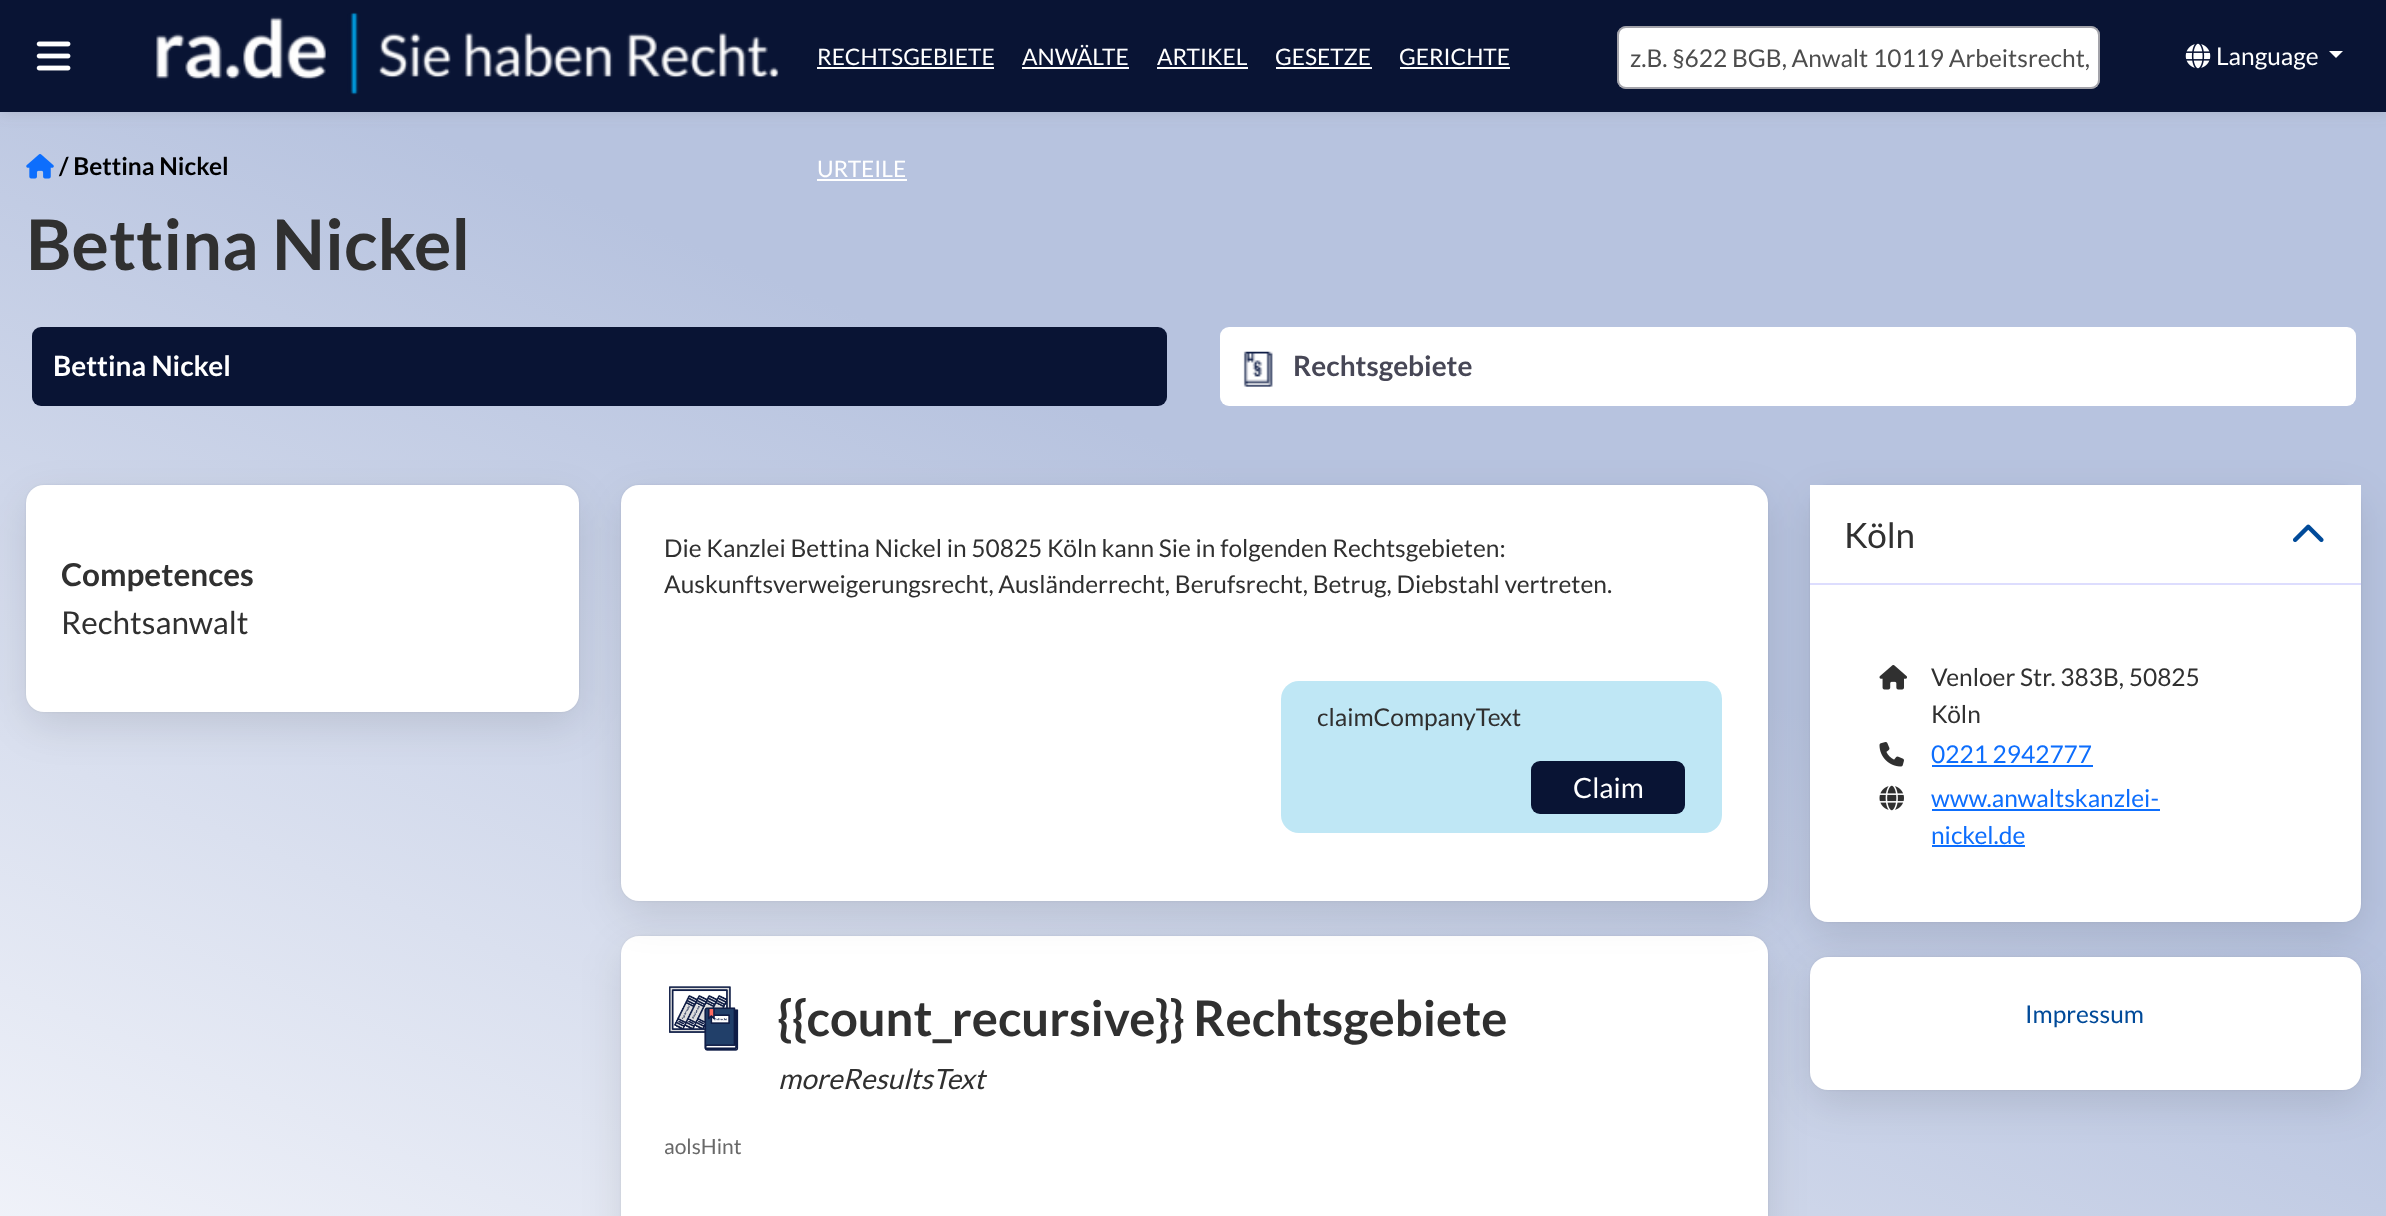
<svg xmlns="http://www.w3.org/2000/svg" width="2386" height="1216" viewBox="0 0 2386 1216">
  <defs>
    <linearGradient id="g1" gradientUnits="userSpaceOnUse" x1="1811" y1="-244" x2="576" y2="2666"><stop offset="0.28" stop-color="#b7c3df"/><stop offset="0.74" stop-color="#fdfdff"/></linearGradient>
    <filter id="blur1" x="-50%" y="-200%" width="200%" height="500%"><feGaussianBlur stdDeviation="6.5"/></filter>
    <filter id="blur2" x="-50%" y="-200%" width="200%" height="500%"><feGaussianBlur stdDeviation="1"/></filter>
    <filter id="blur3" x="-50%" y="-200%" width="200%" height="500%"><feGaussianBlur stdDeviation="21"/></filter>
  </defs>
  <rect width="100%" height="100%" fill="#ffffff"/>
  <rect x="0" y="112" width="2386" height="1104" fill="url(#g1)"/>
  <rect x="0" y="0" width="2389" height="114" fill="#7a7a7a" fill-opacity="0.2" filter="url(#blur1)"/>
  <rect x="0" y="0" width="2386" height="112" fill="#091434"/>
  <image x="36" y="41" width="35" height="30" href="img1.png"/>
  <image x="156" y="12" width="623" height="83" href="img2.png"/>
  <text x="817" y="65" font-family="Lato" font-size="22.75" fill="#ffffff">RECHTSGEBIETE</text>
  <rect x="817" y="67" width="177" height="2" fill="#ffffff"/>
  <text x="1022" y="65" font-family="Lato" font-size="22.75" fill="#ffffff">ANWÄLTE</text>
  <rect x="1022" y="67" width="107" height="2" fill="#ffffff"/>
  <text x="1157" y="65" font-family="Lato" font-size="22.75" fill="#ffffff">ARTIKEL</text>
  <rect x="1157" y="67" width="91" height="2" fill="#ffffff"/>
  <text x="1275" y="65" font-family="Lato" font-size="22.75" fill="#ffffff">GESETZE</text>
  <rect x="1276" y="67" width="96" height="2" fill="#ffffff"/>
  <text x="1399" y="65" font-family="Lato" font-size="22.75" fill="#ffffff">GERICHTE</text>
  <rect x="1400" y="67" width="110" height="2" fill="#ffffff"/>
  <text x="817" y="177" font-family="Lato" font-size="22.75" fill="#ffffff">URTEILE</text>
  <rect x="817" y="179" width="90" height="2" fill="#ffffff"/>
  <rect x="1617" y="26" width="483" height="63" rx="9" fill="#ffffff"/>
  <rect x="1618" y="27" width="481" height="61" rx="8" fill="none" stroke="#474756" stroke-opacity="0.5" stroke-width="2"/>
  <text x="1630" y="67" font-family="Lato" font-size="24.5" fill="#4d4d4d">z.B. §622 BGB, Anwalt 10119 Arbeitsrecht,</text>
  <image x="2185" y="43" width="26" height="26" href="img3.png"/>
  <text x="2216" y="65" font-family="Lato" font-size="24.5" fill="#ffffff">Language</text>
  <path d="M2329 51H2343L2336 58Z" fill="#ffffff"/>
  <image x="26" y="154" width="28" height="25" href="img4.png"/>
  <text x="59" y="175" font-family="Lato" font-size="24.5" font-weight="bold" fill="#000000">/ Bettina Nickel</text>
  <text x="26" y="270" font-family="Lato" font-size="70" font-weight="bold" fill="#303030">Bettina Nickel</text>
  <rect x="32" y="327" width="1135" height="79" rx="9" fill="#091434"/>
  <text x="53" y="376" font-family="Lato" font-size="28" font-weight="bold" fill="#ffffff">Bettina Nickel</text>
  <rect x="1220" y="327" width="1136" height="79" rx="9" fill="#ffffff"/>
  <image x="1243" y="351" width="30" height="36" href="img5.png"/>
  <text x="1293" y="376" font-family="Lato" font-size="28" font-weight="bold" fill="#474756">Rechtsgebiete</text>
  <rect x="26" y="485" width="553" height="227" rx="18" fill="#000000" fill-opacity="0.08" filter="url(#blur2)"/>
  <rect x="26" y="499" width="553" height="227" rx="18" fill="#000000" fill-opacity="0.1" filter="url(#blur3)"/>
  <rect x="26" y="485" width="553" height="227" rx="18" fill="#ffffff"/>
  <text x="61" y="586" font-family="Lato" font-size="31.5" font-weight="bold" fill="#303030">Competences</text>
  <text x="61" y="634" font-family="Lato" font-size="31.5" fill="#303030">Rechtsanwalt</text>
  <rect x="621" y="485" width="1147" height="416" rx="18" fill="#000000" fill-opacity="0.08" filter="url(#blur2)"/>
  <rect x="621" y="936" width="1147" height="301" rx="18" fill="#000000" fill-opacity="0.08" filter="url(#blur2)"/>
  <rect x="621" y="950" width="1147" height="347" rx="18" fill="#000000" fill-opacity="0.1" filter="url(#blur3)"/>
  <path d="M639 936H1750C1760 936 1768 944 1768 954V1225H621V954C621 944 629 936 639 936Z" fill="#ffffff"/>
  <rect x="1810" y="485" width="551" height="437" rx="18" fill="#000000" fill-opacity="0.08" filter="url(#blur2)"/>
  <rect x="1810" y="499" width="551" height="437" rx="18" fill="#000000" fill-opacity="0.1" filter="url(#blur3)"/>
  <rect x="1810" y="485" width="551" height="98" fill="#ffffff"/>
  <rect x="1810" y="957" width="551" height="133" rx="18" fill="#000000" fill-opacity="0.08" filter="url(#blur2)"/>
  <rect x="1810" y="971" width="551" height="133" rx="18" fill="#000000" fill-opacity="0.1" filter="url(#blur3)"/>
  <rect x="1810" y="957" width="551" height="133" rx="18" fill="#ffffff"/>
  <rect x="621" y="499" width="1147" height="416" rx="18" fill="#000000" fill-opacity="0.1" filter="url(#blur3)"/>
  <rect x="621" y="485" width="1147" height="416" rx="18" fill="#ffffff"/>
  <text x="664" y="557" font-family="Lato" font-size="24.5" fill="#303030">Die Kanzlei Bettina Nickel in 50825 Köln kann Sie in folgenden Rechtsgebieten:</text>
  <text x="664" y="593" font-family="Lato" font-size="24.5" fill="#303030">Auskunftsverweigerungsrecht, Ausländerrecht, Berufsrecht, Betrug, Diebstahl vertreten.</text>
  <rect x="1281" y="681" width="441" height="152" rx="18" fill="#bfe7f5"/>
  <text x="1317" y="726" font-family="Lato" font-size="24.5" fill="#303030">claimCompanyText</text>
  <rect x="1531" y="761" width="154" height="53" rx="9" fill="#091434"/>
  <text x="1573" y="798" font-family="Lato" font-size="28" fill="#ffffff">Claim</text>
  <image x="669" y="986" width="70" height="65" href="img6.png"/>
  <text x="778" y="1036" font-family="Lato" font-size="49" font-weight="bold" fill="#303030">{{count_recursive}} Rechtsgebiete</text>
  <text x="778" y="1089" font-family="Lato" font-size="28" font-style="italic" fill="#303030">moreResultsText</text>
  <text x="664" y="1154" font-family="Lato" font-size="21" fill="#696969">aolsHint</text>
  <text x="1844" y="548" font-family="Lato" font-size="35" fill="#303030">Köln</text>
  <image x="2293" y="524" width="31" height="19" href="img7.png"/>
  <path d="M1810 583H2361V904C2361 914 2353 922 2343 922H1828C1818 922 1810 914 1810 904Z" fill="#ffffff"/>
  <rect x="1810" y="583" width="551" height="2" fill="#ddddfe"/>
  <image x="1879" y="665" width="28" height="25" href="img8.png"/>
  <text x="1931" y="686" font-family="Lato" font-size="24.5" fill="#303030">Venloer Str. 383B, 50825</text>
  <text x="1931" y="723" font-family="Lato" font-size="24.5" fill="#303030">Köln</text>
  <image x="1879" y="742" width="25" height="25" href="img9.png"/>
  <text x="1931" y="763" font-family="Lato" font-size="24.5" fill="#0d6efd">0221 2942777</text>
  <rect x="1932" y="765" width="161" height="2" fill="#0d6efd"/>
  <image x="1879" y="785" width="25" height="26" href="img10.png"/>
  <text x="1931" y="807" font-family="Lato" font-size="24.5" fill="#0d6efd">www.anwaltskanzlei-</text>
  <rect x="1932" y="809" width="228" height="2" fill="#0d6efd"/>
  <text x="1931" y="844" font-family="Lato" font-size="24.5" fill="#0d6efd">nickel.de</text>
  <rect x="1932" y="845" width="93" height="2" fill="#0d6efd"/>
  <text x="2025" y="1023" font-family="Lato" font-size="24.5" fill="#004a99">Impressum</text>
</svg>
